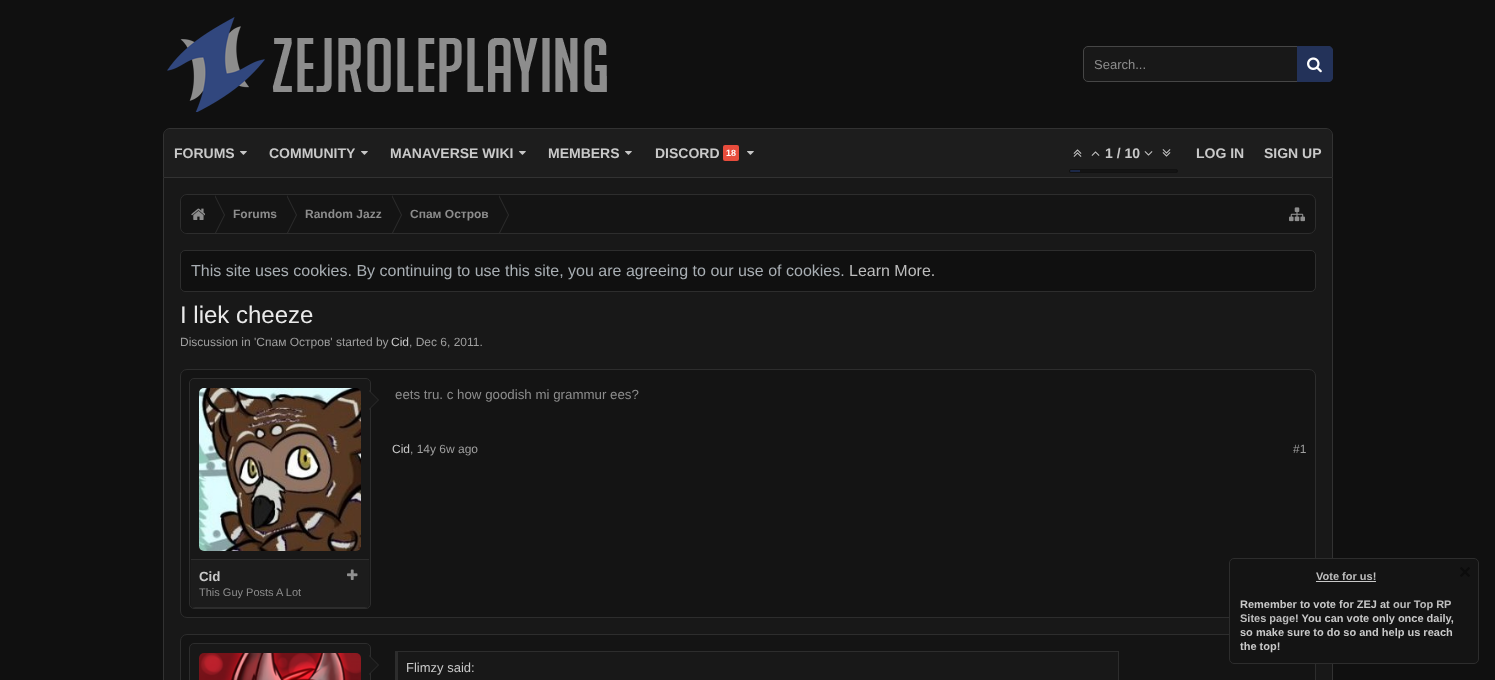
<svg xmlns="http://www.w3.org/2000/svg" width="1495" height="680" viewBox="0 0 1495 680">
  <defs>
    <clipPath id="clip1"><rect x="181" y="195" width="1134" height="38" rx="6"/></clipPath>
  </defs>
  <rect width="100%" height="100%" fill="#101010"/>
  <image x="167" y="17" width="440" height="95" href="img1.png"/>
  <rect x="1083.5" y="46.5" width="249" height="35" rx="4.5" fill="#181818" stroke="#464646"/>
  <text x="1094" y="69" font-family="Liberation Sans" font-size="13" fill="#8d8d8d">Search...</text>
  <path d="M1297 46H1328C1331 46 1333 48 1333 51V77C1333 80 1331 82 1328 82H1297Z" fill="#233259"/>
  <image x="1307" y="57" width="15" height="16" href="img2.png"/>
  <path d="M170 128.5H1326C1329.5 128.5 1332.5 131.5 1332.5 135V177.5H163.5V135C163.5 131.5 166.5 128.5 170 128.5Z" fill="#1d1d1d" stroke="#323232"/>
  <text x="174" y="158" font-family="Liberation Sans" font-size="14" font-weight="bold" fill="#c9c9c9">FORUMS</text>
  <image x="240" y="151" width="7" height="4" href="img3.png"/>
  <text x="269" y="158" font-family="Liberation Sans" font-size="14" font-weight="bold" fill="#c9c9c9">COMMUNITY</text>
  <image x="361" y="151" width="7" height="4" href="img3.png"/>
  <text x="390" y="158" font-family="Liberation Sans" font-size="14" font-weight="bold" fill="#c9c9c9">MANAVERSE WIKI</text>
  <image x="519" y="151" width="7" height="4" href="img3.png"/>
  <text x="548" y="158" font-family="Liberation Sans" font-size="14" font-weight="bold" fill="#c9c9c9">MEMBERS</text>
  <image x="625" y="151" width="7" height="4" href="img3.png"/>
  <text x="655" y="158" font-family="Liberation Sans" font-size="14" font-weight="bold" fill="#c9c9c9">DISCORD</text>
  <rect x="723" y="145" width="16" height="16" rx="2" fill="#e74c3c"/>
  <text x="726" y="156" font-family="Liberation Sans" font-size="9" font-weight="bold" fill="#ffffff">18</text>
  <image x="747" y="151" width="7" height="4" href="img3.png"/>
  <image x="1073" y="149" width="9" height="8" href="img4.png"/>
  <image x="1091" y="151" width="9" height="5" href="img5.png"/>
  <text x="1105" y="158" font-family="Liberation Sans" font-size="14" font-weight="bold" fill="#c9c9c9">1 / 10</text>
  <image x="1144" y="151" width="9" height="5" href="img6.png"/>
  <image x="1162" y="149" width="9" height="8" href="img7.png"/>
  <rect x="1069.5" y="169.5" width="108" height="3" rx="1.5" fill="#141414" stroke="#121212"/>
  <path d="M1071 170H1080V172H1071C1070.5 172 1070 171.5 1070 171C1070 170.5 1070.5 170 1071 170Z" fill="#1c2847"/>
  <text x="1196" y="158" font-family="Liberation Sans" font-size="14" font-weight="bold" fill="#c9c9c9">LOG IN</text>
  <text x="1264" y="158" font-family="Liberation Sans" font-size="14" font-weight="bold" fill="#c9c9c9">SIGN UP</text>
  <rect x="164" y="178" width="1168" height="502" fill="#181818"/>
  <rect x="1332" y="178" width="1" height="502" fill="#323232"/>
  <rect x="163" y="178" width="1" height="502" fill="#323232"/>
  <rect x="180.5" y="194.5" width="1135" height="39" rx="6.5" fill="#141414" stroke="#2d2d2d"/>
  <g clip-path="url(#clip1)">
    <path d="M188 195H215V234H188C184 234 181 231 181 227V202C181 198 184 195 188 195Z" fill="#141414"/>
  </g>
  <image x="191" y="208" width="14" height="12" href="img8.png"/>
  <path d="M216 233H215V195L225 215Z" fill="#2d2d2d"/>
  <path d="M215 233H214V195L224 215Z" fill="#141414"/>
  <text x="233" y="218" font-family="Liberation Sans" font-size="12" font-weight="bold" fill="#8d8d8d">Forums</text>
  <path d="M288 233H287V195L297 215Z" fill="#2d2d2d"/>
  <path d="M287 233H286V195L296 215Z" fill="#141414"/>
  <text x="305" y="218" font-family="Liberation Sans" font-size="12" font-weight="bold" fill="#8d8d8d">Random Jazz</text>
  <path d="M393 233H392V195L402 215Z" fill="#2d2d2d"/>
  <path d="M392 233H391V195L401 215Z" fill="#141414"/>
  <text x="410" y="218" font-family="Liberation Sans" font-size="12" font-weight="bold" fill="#8d8d8d">Спам Oстров</text>
  <path d="M500 233H499V195L509 215Z" fill="#2d2d2d"/>
  <path d="M499 233H498V195L508 215Z" fill="#141414"/>
  <image x="1289" y="207" width="16" height="15" href="img9.png"/>
  <rect x="180.5" y="250.5" width="1135" height="41" rx="4.5" fill="#101010" stroke="#2d2d2d"/>
  <text x="191" y="276" font-family="Liberation Sans" font-size="16" fill="#a8aeb3">This site uses cookies. By continuing to use this site, you are agreeing to our use of cookies.</text>
  <text x="849" y="276" font-family="Liberation Sans" font-size="16" fill="#bdbdbd">Learn More.</text>
  <text x="180" y="323" font-family="Liberation Sans" font-size="24" fill="#e9e9e9">I liek cheeze</text>
  <text x="180" y="346" font-family="Liberation Sans" font-size="12" fill="#9f9f9f">Discussion in 'Спам Oстров' started by</text>
  <text x="391" y="346" font-family="Liberation Sans" font-size="12" fill="#c9c9c9">Cid</text>
  <text x="409" y="346" font-family="Liberation Sans" font-size="12" fill="#9f9f9f">, Dec 6, 2011.</text>
  <rect x="180.5" y="369.5" width="1135" height="248" rx="6.5" fill="#141414" stroke="#2d2d2d"/>
  <text x="395" y="399" font-family="Liberation Sans" font-size="13.3" fill="#8d8d8d">eets tru. c how goodish mi grammur ees?</text>
  <text x="392" y="453" font-family="Liberation Sans" font-size="12" fill="#c9c9c9">Cid</text>
  <text x="410" y="453" font-family="Liberation Sans" font-size="12" fill="#9f9f9f">, 14y 6w ago</text>
  <text x="1293" y="453" font-family="Liberation Sans" font-size="12" fill="#9f9f9f">#1</text>
  <rect x="189.5" y="378.5" width="181" height="230" rx="4.5" fill="#181818" stroke="#2d2d2d"/>
  <path d="M368 606C367.5 607 366 607.5 365 607.5H195C194 607.5 192.5 607 192 606" fill="none" stroke="#2d2d2d"/>
  <image x="199" y="388" width="162" height="163" href="img10.png"/>
  <path d="M369 410V390L379 400Z" fill="#2d2d2d"/>
  <path d="M368 410V390L378 400Z" fill="#181818"/>
  <rect x="191" y="560" width="178" height="47" fill="#1c1c1c"/>
  <rect x="191" y="559" width="178" height="1" fill="#2d2d2d"/>
  <text x="199" y="581" font-family="Liberation Sans" font-size="13.3" font-weight="bold" fill="#c9c9c9">Cid</text>
  <image x="347" y="569" width="11" height="11" href="img11.png"/>
  <text x="199" y="596" font-family="Liberation Sans" font-size="11" fill="#8d8d8d">This Guy Posts A Lot</text>
  <rect x="180.5" y="634.5" width="1135" height="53" rx="6.5" fill="#141414" stroke="#2d2d2d"/>
  <rect x="189.5" y="643.5" width="181" height="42" rx="4.5" fill="#181818" stroke="#2d2d2d"/>
  <image x="199" y="653" width="162" height="27" href="img12.png"/>
  <path d="M369 675V655L379 665Z" fill="#2d2d2d"/>
  <path d="M368 675V655L378 665Z" fill="#181818"/>
  <rect x="398" y="652" width="720" height="28" fill="#181818"/>
  <rect x="395.5" y="651.5" width="723" height="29" fill="none" stroke="#2d2d2d"/>
  <path d="M396 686V652H398V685Z" fill="#2d2d2d"/>
  <text x="406" y="672" font-family="Liberation Sans" font-size="13" fill="#c9c9c9">Flimzy said:</text>
  <rect x="1229.5" y="558.5" width="249" height="105" rx="4.5" fill="#141414" stroke="#2d2d2d"/>
  <text x="1316" y="580" font-family="Liberation Sans" font-size="11" font-weight="bold" fill="#bdbdbd">Vote for us!</text>
  <rect x="1316" y="581" width="60" height="1" fill="#c9c9c9"/>
  <text x="1240" y="608" font-family="Liberation Sans" font-size="11" font-weight="bold" fill="#c9c9c9">Remember to vote for ZEJ at</text>
  <text x="1393" y="608" font-family="Liberation Sans" font-size="11" font-weight="bold" fill="#bdbdbd">our Top RP</text>
  <text x="1240" y="622" font-family="Liberation Sans" font-size="11" font-weight="bold" fill="#bdbdbd">Sites page</text>
  <text x="1295" y="622" font-family="Liberation Sans" font-size="11" font-weight="bold" fill="#c9c9c9">! You can vote only once daily,</text>
  <text x="1240" y="636" font-family="Liberation Sans" font-size="11" font-weight="bold" fill="#c9c9c9">so make sure to do so and help us reach</text>
  <text x="1240" y="650" font-family="Liberation Sans" font-size="11" font-weight="bold" fill="#c9c9c9">the top!</text>
  <image x="1460" y="567" width="10" height="10" href="img13.png"/>
</svg>
